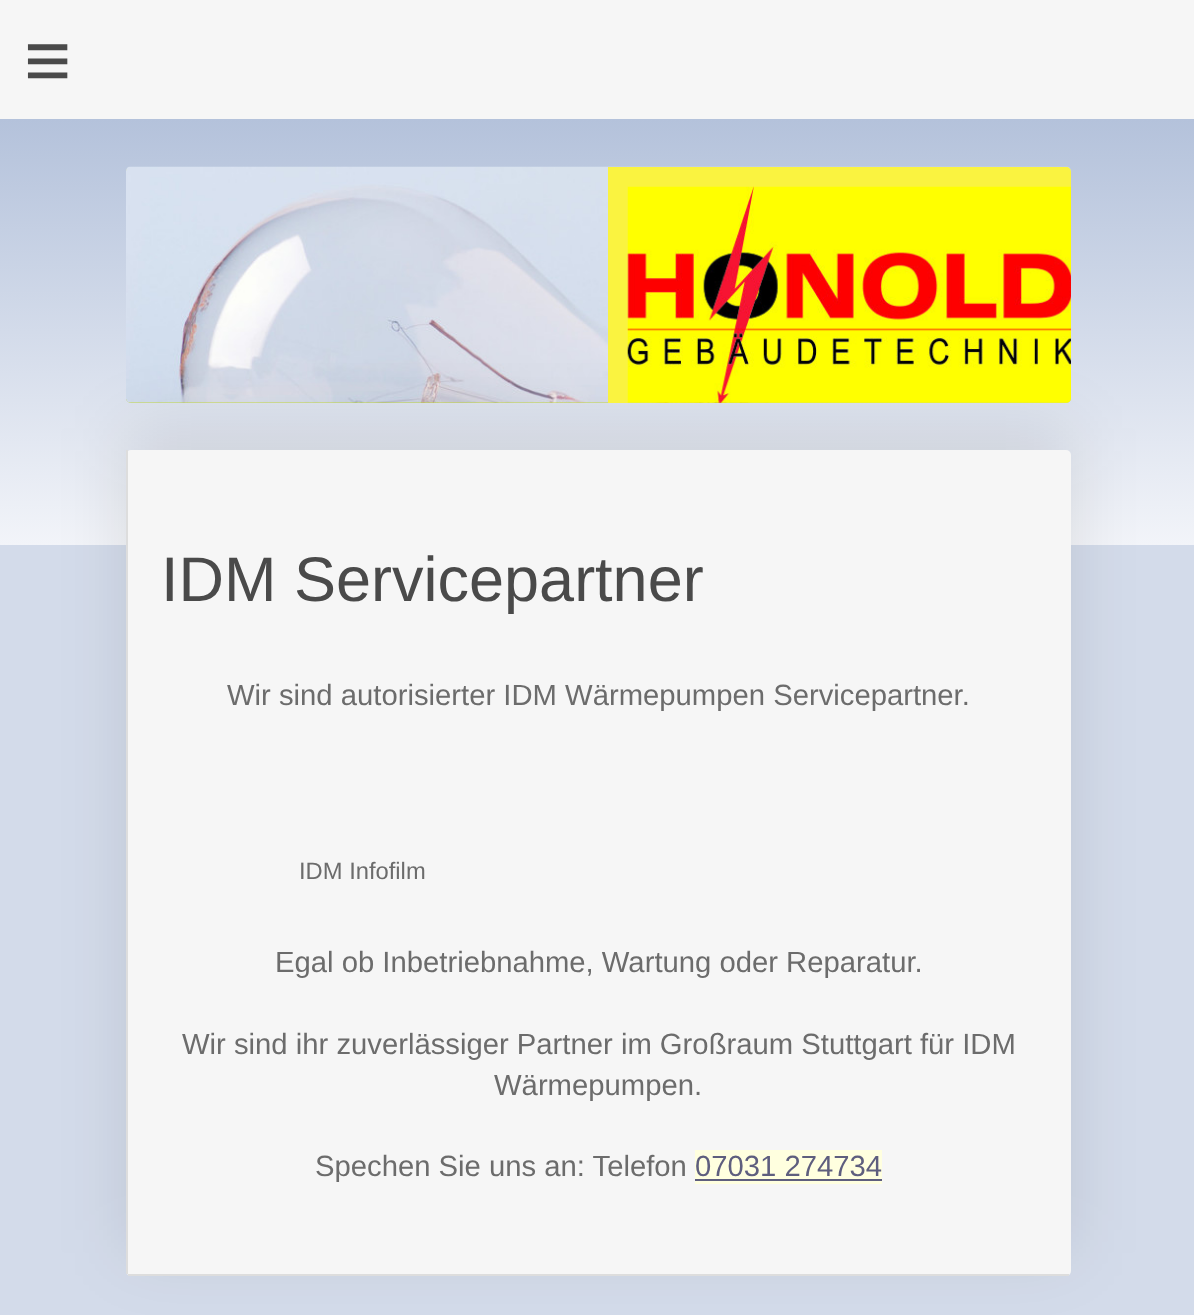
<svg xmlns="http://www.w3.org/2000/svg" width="1194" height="1315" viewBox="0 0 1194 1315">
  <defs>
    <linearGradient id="g1" gradientUnits="userSpaceOnUse" x1="0" y1="545" x2="0" y2="119"><stop offset="0" stop-color="#f2f4f9"/><stop offset="1" stop-color="#b4c2db"/></linearGradient>
    <filter id="blur1" x="-50%" y="-200%" width="200%" height="500%"><feGaussianBlur stdDeviation="34"/></filter>
  </defs>
  <rect width="100%" height="100%" fill="#d3dbea"/>
  <rect x="0" y="0" width="1194" height="119" fill="#f6f6f6"/>
  <text x="24" y="88" font-family="Liberation Sans" font-size="81" letter-spacing="24" fill="#4a4a4a">≡</text>
  <rect x="0" y="119" width="1194" height="426" fill="url(#g1)"/>
  <rect x="126" y="167" width="945" height="236" rx="5" fill="#c6dc23"/>
  <image x="126" y="166" width="945" height="237" href="img1.png"/>
  <rect x="126" y="428" width="945" height="825" rx="5" fill="#000000" fill-opacity="0.1" filter="url(#blur1)"/>
  <path d="M608 167V403H628V187H1071V172C1071 169 1069 167 1066 167Z" fill="#faf340"/>
  <image x="627" y="186" width="444" height="217" href="img2.png"/>
  <rect x="126" y="450" width="945" height="826" rx="5" fill="#f6f6f6"/>
  <rect x="128" y="1274" width="941" height="2" fill="#dddddd"/>
  <rect x="126" y="450" width="2" height="824" fill="#dddddd"/>
  <text x="161" y="601" font-family="Liberation Sans" font-size="63" fill="#4a4a4a">IDM Servicepartner</text>
  <text x="227" y="705" font-family="Liberation Sans" font-size="29.25" fill="#6c6c6c">Wir sind autorisierter IDM Wärmepumpen Servicepartner.</text>
  <text x="299" y="879" font-family="Liberation Sans" font-size="23.75" fill="#6c6c6c">IDM Infofilm</text>
  <text x="275" y="972" font-family="Liberation Sans" font-size="29.25" fill="#6c6c6c">Egal ob Inbetriebnahme, Wartung oder Reparatur.</text>
  <text x="182" y="1054" font-family="Liberation Sans" font-size="29.25" fill="#6c6c6c">Wir sind ihr zuverlässiger Partner im Großraum Stuttgart für IDM</text>
  <text x="494" y="1095" font-family="Liberation Sans" font-size="29.25" fill="#6c6c6c">Wärmepumpen.</text>
  <text x="315" y="1176" font-family="Liberation Sans" font-size="29.25" fill="#6c6c6c">Spechen Sie uns an: Telefon</text>
  <rect x="695" y="1150" width="187" height="34" fill="#ffffdf"/>
  <text x="695" y="1176" font-family="Liberation Sans" font-size="29.25" fill="#5e5e7e">07031 274734</text>
  <rect x="695" y="1179" width="187" height="2" fill="#5e5e7e"/>
</svg>
